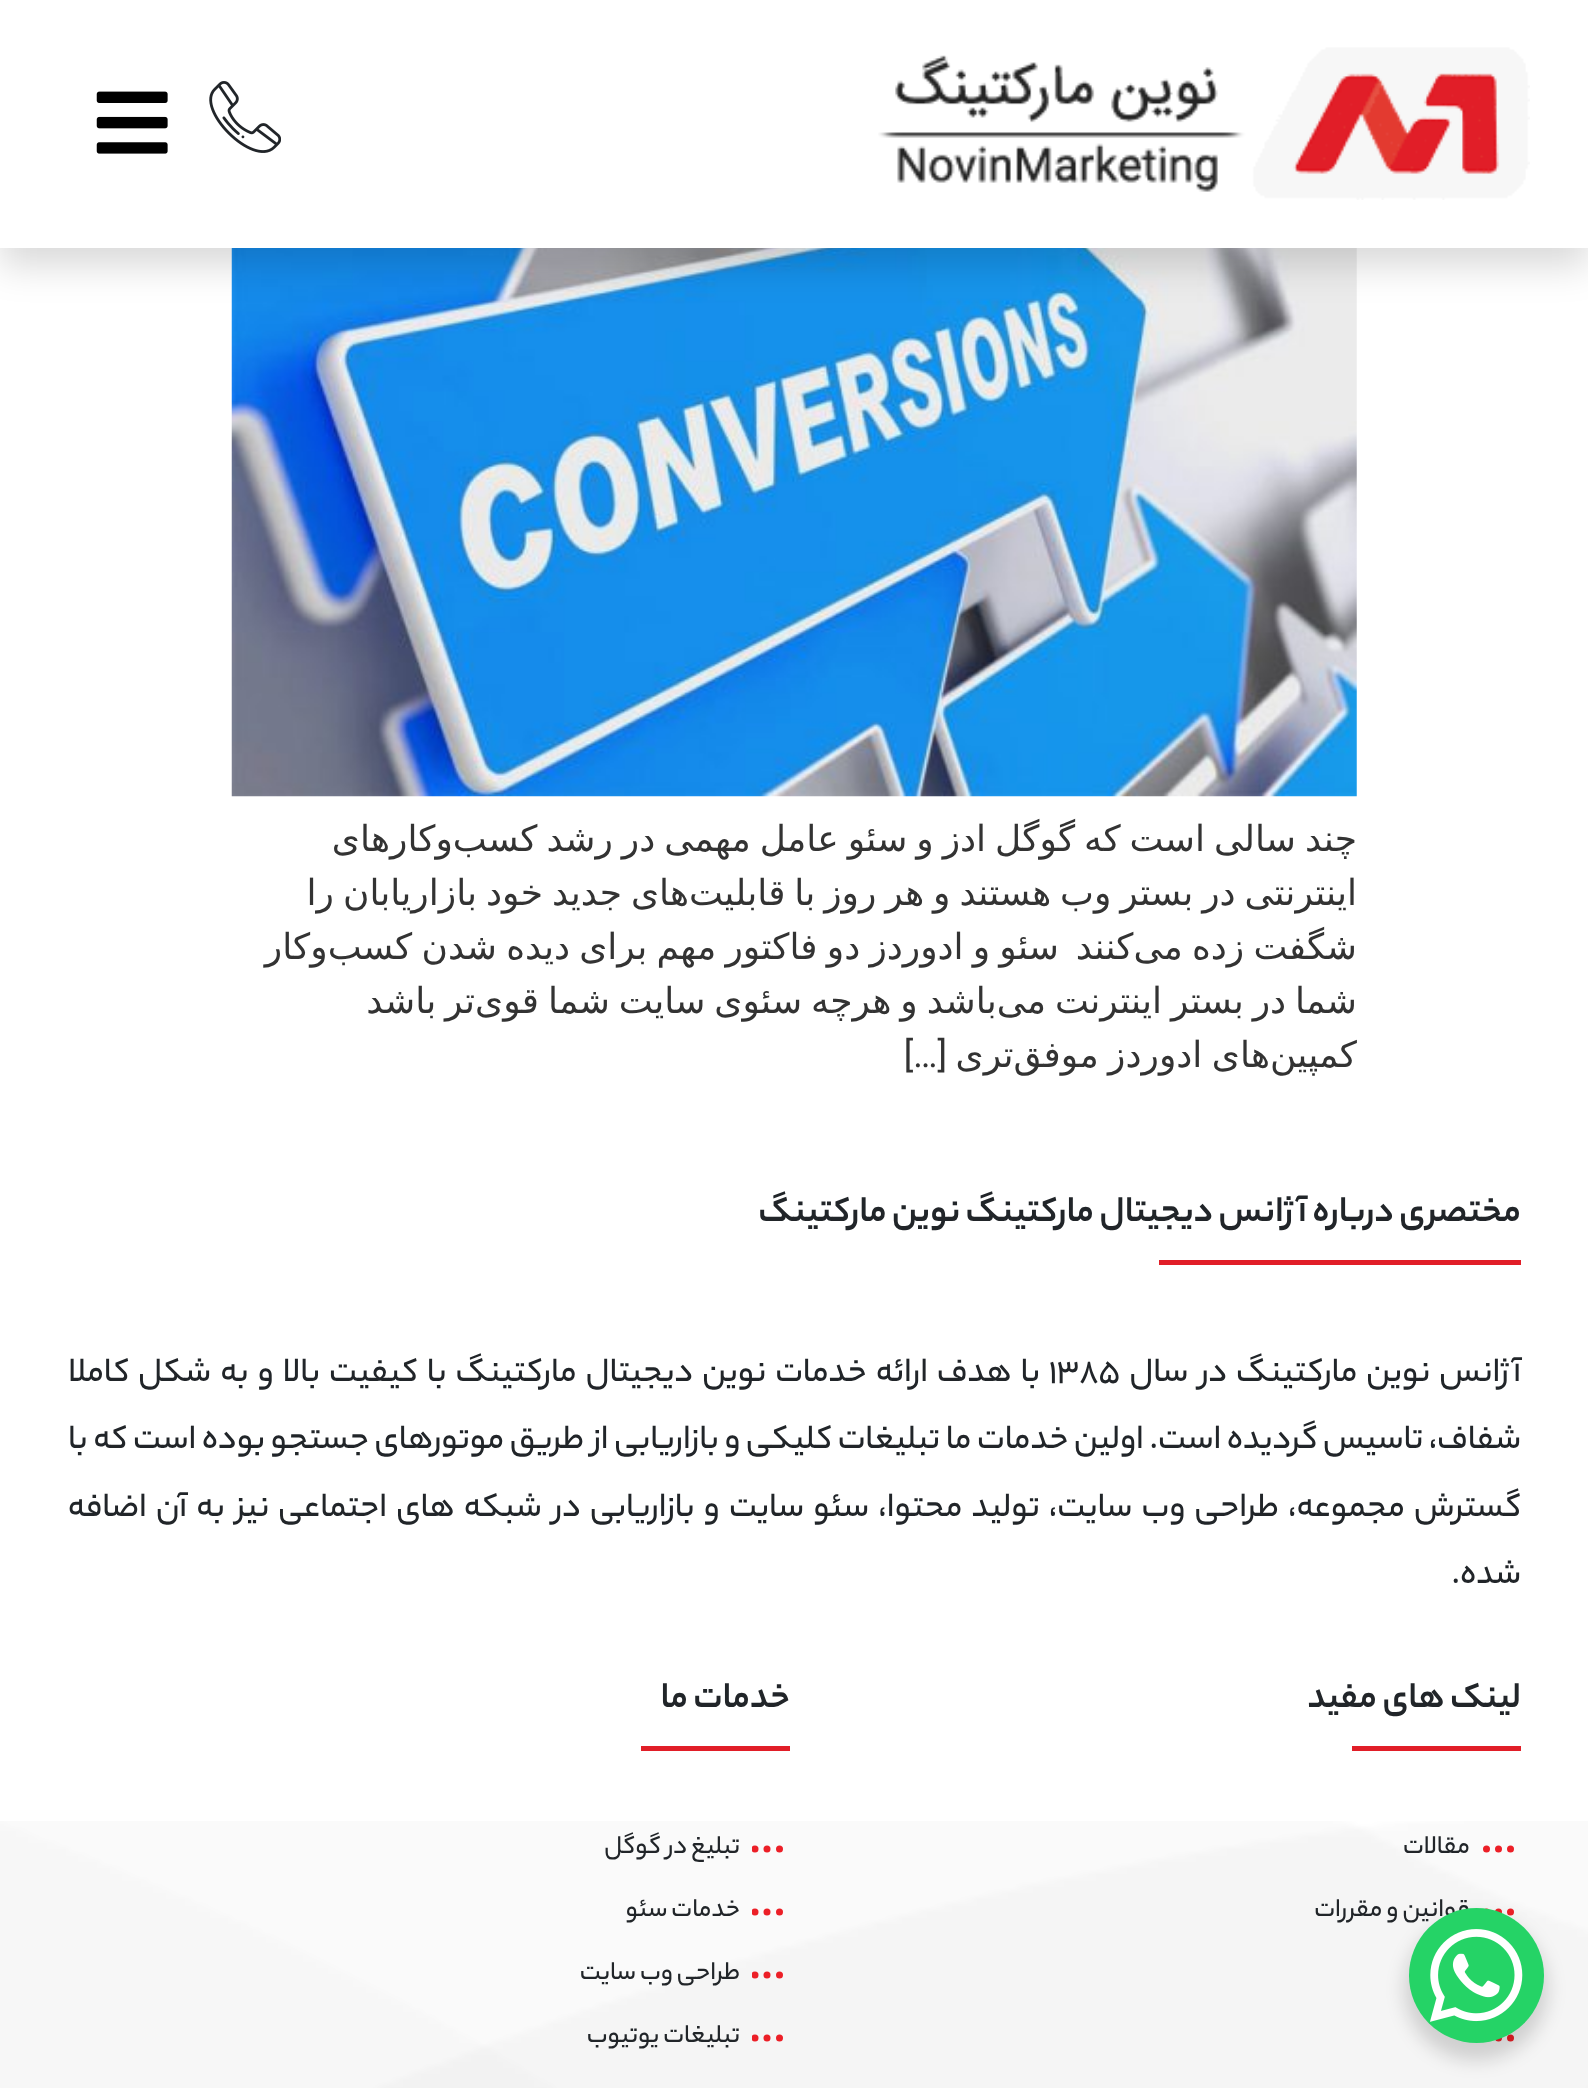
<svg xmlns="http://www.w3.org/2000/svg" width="1588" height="2088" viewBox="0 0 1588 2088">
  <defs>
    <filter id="blur1" x="-50%" y="-200%" width="200%" height="500%"><feGaussianBlur stdDeviation="18"/></filter>
    <clipPath id="clip1"><rect x="752" y="1834" width="31" height="31"/></clipPath>
    <clipPath id="clip2"><rect x="752" y="1897" width="31" height="31"/></clipPath>
    <clipPath id="clip3"><rect x="752" y="1960" width="31" height="31"/></clipPath>
    <clipPath id="clip4"><rect x="752" y="2023" width="31" height="31"/></clipPath>
    <filter id="blur2" x="-50%" y="-200%" width="200%" height="500%"><feGaussianBlur stdDeviation="9"/></filter>
  </defs>
  <rect width="100%" height="100%" fill="#ffffff"/>
  <image x="231" y="248" width="1126" height="549" href="img4.png"/>
  <rect x="0" y="18" width="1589" height="248" fill="#000000" fill-opacity="0.15" filter="url(#blur1)"/>
  <rect x="0" y="0" width="1588" height="248" fill="#ffffff"/>
  <image x="878" y="47" width="652" height="153" href="img1.png"/>
  <image x="209" y="81" width="72" height="72" href="img2.png"/>
  <image x="96" y="91" width="72" height="63" href="img3.png"/>
  <text x="1357" y="851" word-spacing="-2.5" font-family="DejaVu Sans" font-size="36" direction="rtl" fill="#333333">چند سالی است که گوگل ادز و سئو عامل مهمی در رشد کسب‌وکارهای</text>
  <text x="1357" y="905" word-spacing="-2.5" font-family="DejaVu Sans" font-size="36" direction="rtl" fill="#333333">اینترنتی در بستر وب هستند و هر روز با قابلیت‌های جدید خود بازاریابان را</text>
  <text x="1357" y="959" word-spacing="-2.25" font-family="DejaVu Sans" font-size="36" direction="rtl" fill="#333333">شگفت زده می‌کنند</text>
  <text x="1059" y="959" word-spacing="-2.25" font-family="DejaVu Sans" font-size="36" direction="rtl" fill="#333333">سئو و ادوردز دو فاکتور مهم برای دیده شدن کسب‌وکار</text>
  <text x="1357" y="1013" word-spacing="-2.5" font-family="DejaVu Sans" font-size="36" direction="rtl" fill="#333333">شما در بستر اینترنت می‌باشد و هرچه سئوی سایت شما قوی‌تر باشد</text>
  <text x="1357" y="1067" word-spacing="-2" font-family="DejaVu Sans" font-size="36" direction="rtl" fill="#333333">کمپین‌های ادوردز موفق‌تری</text>
  <text x="947" y="1067" font-family="Roboto" font-size="36" direction="rtl" fill="#333333">[…]</text>
  <image x="0" y="1821" width="1588" height="267" href="img5.png"/>
  <text x="1521" y="1221" font-family="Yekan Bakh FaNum" font-size="38.25" font-weight="bold" direction="rtl" fill="#212529">مختصری درباره آژانس دیجیتال مارکتینگ نوین مارکتینگ</text>
  <rect x="1159" y="1260" width="362" height="5" fill="#e11e28"/>
  <text x="1521" y="1381" word-spacing="3.75" font-family="Yekan Bakh FaNum" font-size="36" font-weight="500" direction="rtl" fill="#212529">آژانس نوین مارکتینگ در سال</text>
  <text x="1049" y="1381" font-family="Yekan Bakh FaNum" font-size="36" font-weight="500" fill="#212529">۱۳۸۵</text>
  <text x="1040" y="1381" word-spacing="3.75" font-family="Yekan Bakh FaNum" font-size="36" font-weight="500" direction="rtl" fill="#212529">با هدف ارائه خدمات نوین دیجیتال مارکتینگ با کیفیت بالا و به شکل کاملا</text>
  <text x="1521" y="1448" word-spacing="0.3" font-family="Yekan Bakh FaNum" font-size="36" font-weight="500" direction="rtl" fill="#212529">شفاف، تاسیس گردیده است. اولین خدمات ما تبلیغات کلیکی و بازاریابی از طریق موتورهای جستجو بوده است که با</text>
  <text x="1521" y="1516" word-spacing="3.9" font-family="Yekan Bakh FaNum" font-size="36" font-weight="500" direction="rtl" fill="#212529">گسترش مجموعه، طراحی وب سایت، تولید محتوا، سئو سایت و بازاریابی در شبکه های اجتماعی نیز به آن اضافه</text>
  <text x="1521" y="1583" font-family="Yekan Bakh FaNum" font-size="36" font-weight="500" direction="rtl" fill="#212529">شده.</text>
  <text x="1521" y="1707" font-family="Yekan Bakh FaNum" font-size="38.25" font-weight="bold" direction="rtl" fill="#212529">لینک های مفید</text>
  <rect x="1352" y="1746" width="169" height="5" fill="#e11e28"/>
  <circle cx="1486.5" cy="1849" r="3.5" fill="#ec1f27"/>
  <circle cx="1498.5" cy="1849" r="3.5" fill="#ec1f27"/>
  <circle cx="1510.5" cy="1849" r="3.5" fill="#ec1f27"/>
  <text x="1470" y="1853" font-family="Yekan Bakh FaNum" font-size="27" font-weight="500" direction="rtl" fill="#212529">مقالات</text>
  <circle cx="1486.5" cy="1912" r="3.5" fill="#ec1f27"/>
  <circle cx="1498.5" cy="1912" r="3.5" fill="#ec1f27"/>
  <circle cx="1510.5" cy="1912" r="3.5" fill="#ec1f27"/>
  <text x="1470" y="1916" font-family="Yekan Bakh FaNum" font-size="27" font-weight="500" direction="rtl" fill="#212529">قوانین و مقررات</text>
  <circle cx="1498.5" cy="2038" r="3.5" fill="#ec1f27"/>
  <circle cx="1510.5" cy="2038" r="3.5" fill="#ec1f27"/>
  <text x="790" y="1707" font-family="Yekan Bakh FaNum" font-size="38.25" font-weight="bold" direction="rtl" fill="#212529">خدمات ما</text>
  <rect x="641" y="1746" width="149" height="5" fill="#e11e28"/>
  <g clip-path="url(#clip1)">
    <circle cx="755" cy="1849" r="3.5" fill="#ec1f27"/>
  </g>
  <circle cx="767" cy="1849" r="3.5" fill="#ec1f27"/>
  <circle cx="779.5" cy="1849" r="3.5" fill="#ec1f27"/>
  <text x="740" y="1853" font-family="Yekan Bakh FaNum" font-size="27" font-weight="500" direction="rtl" fill="#212529">تبلیغ در گوگل</text>
  <g clip-path="url(#clip2)">
    <circle cx="755" cy="1912" r="3.5" fill="#ec1f27"/>
  </g>
  <circle cx="767" cy="1912" r="3.5" fill="#ec1f27"/>
  <circle cx="779.5" cy="1912" r="3.5" fill="#ec1f27"/>
  <text x="740" y="1916" font-family="Yekan Bakh FaNum" font-size="27" font-weight="500" direction="rtl" fill="#212529">خدمات سئو</text>
  <g clip-path="url(#clip3)">
    <circle cx="755" cy="1975" r="3.5" fill="#ec1f27"/>
  </g>
  <circle cx="767" cy="1975" r="3.5" fill="#ec1f27"/>
  <circle cx="779.5" cy="1975" r="3.5" fill="#ec1f27"/>
  <text x="740" y="1979" font-family="Yekan Bakh FaNum" font-size="27" font-weight="500" direction="rtl" fill="#212529">طراحی وب سایت</text>
  <g clip-path="url(#clip4)">
    <circle cx="755" cy="2038" r="3.5" fill="#ec1f27"/>
  </g>
  <circle cx="767" cy="2038" r="3.5" fill="#ec1f27"/>
  <circle cx="779.5" cy="2038" r="3.5" fill="#ec1f27"/>
  <text x="740" y="2042" font-family="Yekan Bakh FaNum" font-size="27" font-weight="500" direction="rtl" fill="#212529">تبلیغات یوتیوب</text>
  <rect x="1404" y="1917" width="144" height="144" rx="72" fill="#000000" fill-opacity="0.15" filter="url(#blur2)"/>
  <circle cx="1476.5" cy="1975.5" r="67.5" fill="#25d366"/>
  <image x="1430" y="1929" width="93" height="93" href="img6.png"/>
</svg>
